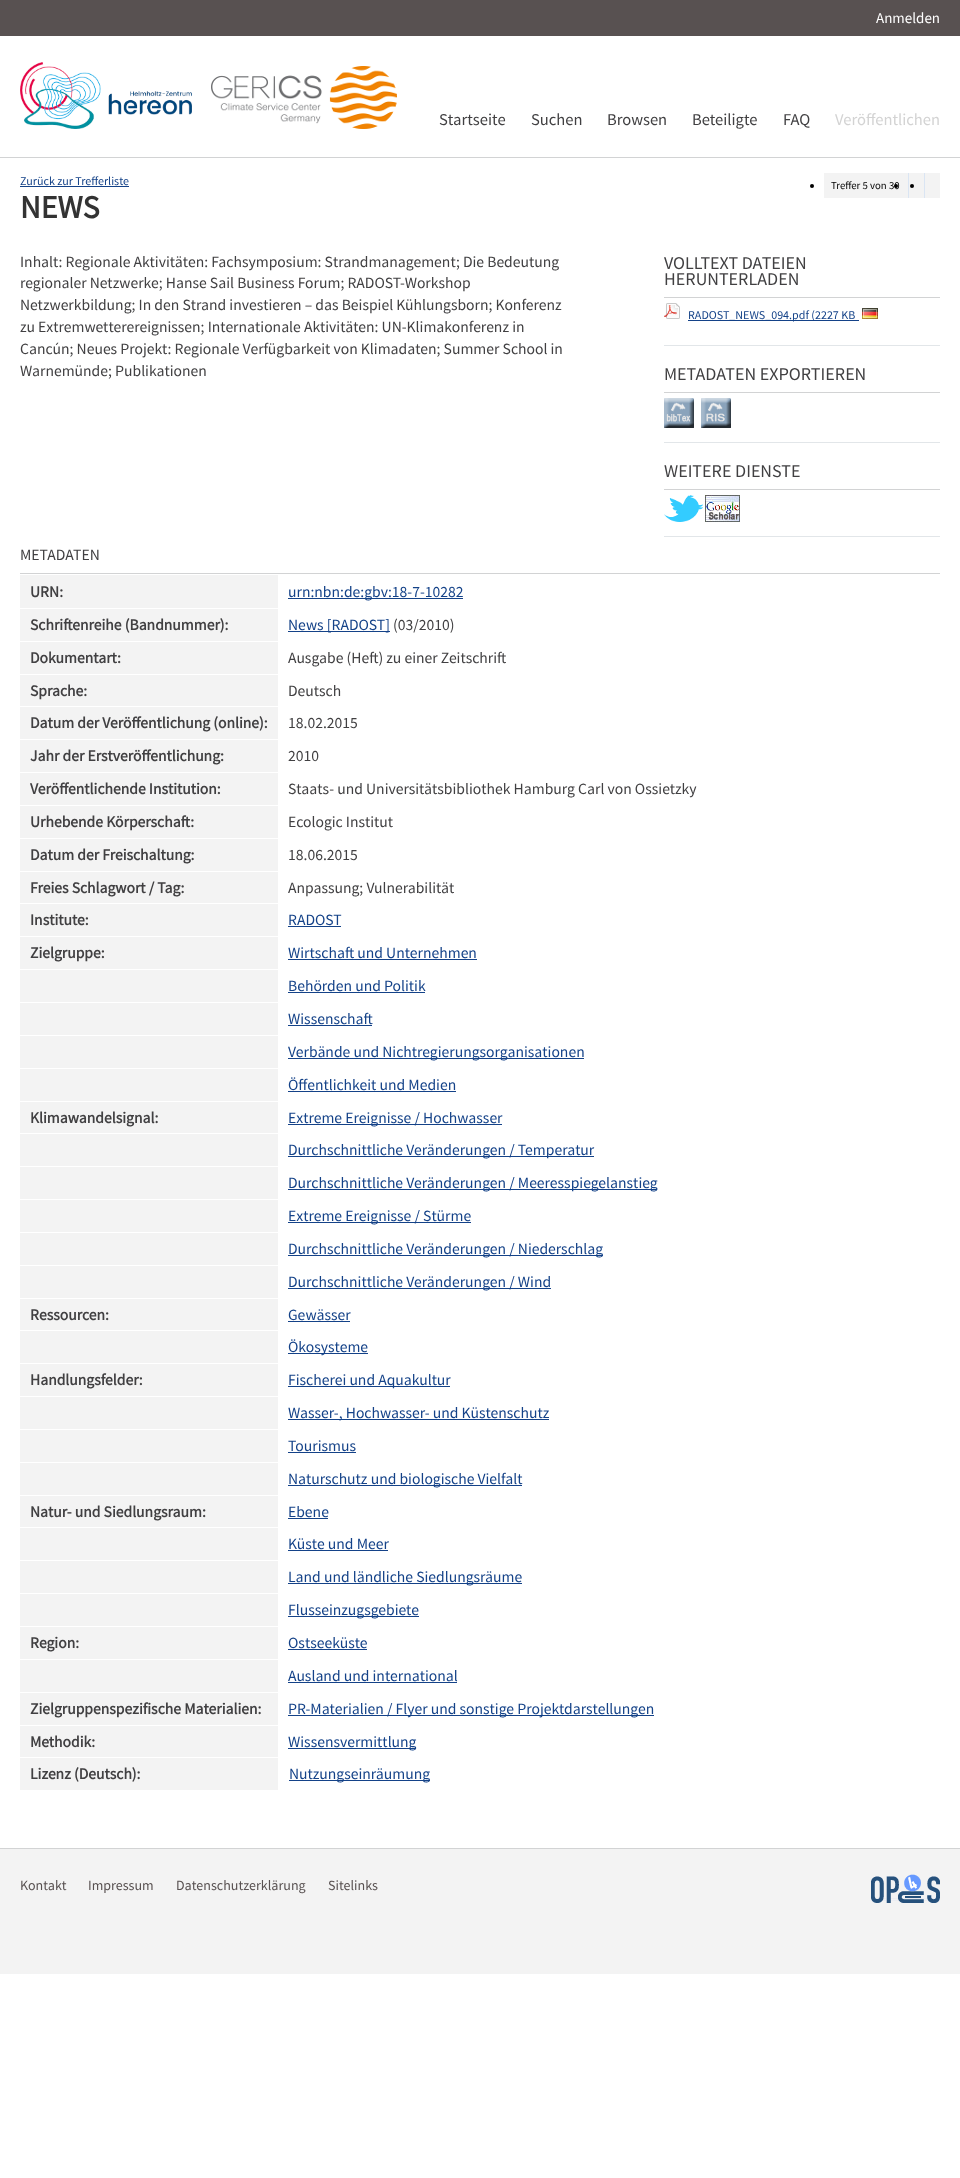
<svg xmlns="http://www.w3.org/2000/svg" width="960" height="2178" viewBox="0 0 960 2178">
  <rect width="100%" height="100%" fill="#ffffff"/>
  <rect x="0" y="0" width="960" height="36" fill="#585151"/>
  <text x="876" y="23" font-family="Source Sans Pro" font-size="15" fill="#ffffff">Anmelden</text>
  <rect x="0" y="157" width="960" height="1" fill="#d2d3d4"/>
  <image x="20" y="62" width="172" height="67" href="img1.png"/>
  <image x="211" y="66" width="186" height="63" href="img2.png"/>
  <text x="439" y="125" font-family="Source Sans Pro" font-size="16.5" fill="#414042">Startseite</text>
  <text x="531" y="125" font-family="Source Sans Pro" font-size="16.5" fill="#414042">Suchen</text>
  <text x="607" y="125" font-family="Source Sans Pro" font-size="16.5" fill="#414042">Browsen</text>
  <text x="692" y="125" font-family="Source Sans Pro" font-size="16.5" fill="#414042">Beteiligte</text>
  <text x="783" y="125" font-family="Source Sans Pro" font-size="16.5" fill="#414042">FAQ</text>
  <text x="835" y="125" font-family="Source Sans Pro" font-size="16.5" fill="#d3d3d3">Veröffentlichen</text>
  <text x="20" y="185" font-family="Source Sans Pro" font-size="12" fill="#144288">Zurück zur Trefferliste</text>
  <rect x="20" y="186" width="109" height="1" fill="#144288"/>
  <rect x="824" y="173" width="116" height="25" fill="#f3f3f3"/>
  <circle cx="812" cy="186" r="2" fill="#000000"/>
  <text x="831" y="189" font-family="Source Sans Pro" font-size="10.75" fill="#000000">Treffer 5 von 30</text>
  <rect x="908" y="173" width="1" height="25" fill="#dae5f3"/>
  <circle cx="896" cy="186" r="2" fill="#000000"/>
  <rect x="924" y="173" width="1" height="25" fill="#dae5f3"/>
  <circle cx="912" cy="186" r="2" fill="#000000"/>
  <text x="20" y="218" font-family="Source Sans Pro" font-size="32" font-weight="bold" fill="#333333">NEWS</text>
  <text x="20" y="267" font-family="Source Sans Pro" font-size="15.6" fill="#414042">Inhalt: Regionale Aktivitäten: Fachsymposium: Strandmanagement; Die Bedeutung</text>
  <text x="20" y="288" font-family="Source Sans Pro" font-size="15.6" fill="#414042">regionaler Netzwerke; Hanse Sail Business Forum; RADOST-Workshop</text>
  <text x="20" y="310" font-family="Source Sans Pro" font-size="15.6" fill="#414042">Netzwerkbildung; In den Strand investieren – das Beispiel Kühlungsborn; Konferenz</text>
  <text x="20" y="332" font-family="Source Sans Pro" font-size="15.6" fill="#414042">zu Extremwetterereignissen; Internationale Aktivitäten: UN-Klimakonferenz in</text>
  <text x="20" y="354" font-family="Source Sans Pro" font-size="15.6" fill="#414042">Cancún; Neues Projekt: Regionale Verfügbarkeit von Klimadaten; Summer School in</text>
  <text x="20" y="376" font-family="Source Sans Pro" font-size="15.6" fill="#414042">Warnemünde; Publikationen</text>
  <rect x="664" y="345" width="276" height="1" fill="#e2e6e9"/>
  <rect x="664" y="297" width="276" height="1" fill="#d2d3d4"/>
  <text x="664" y="269" font-family="Source Sans Pro" font-size="18" fill="#414042">VOLLTEXT DATEIEN</text>
  <text x="664" y="285" font-family="Source Sans Pro" font-size="18" fill="#414042">HERUNTERLADEN</text>
  <image x="664" y="303" width="16" height="16" href="img3.png"/>
  <rect x="688" y="320" width="171" height="1" fill="#144288"/>
  <text x="688" y="319" font-family="Source Sans Pro" font-size="12" fill="#144288">RADOST_NEWS_094.pdf (2227 KB</text>
  <image x="862" y="308" width="16" height="11" href="img4.png"/>
  <rect x="664" y="442" width="276" height="1" fill="#e2e6e9"/>
  <rect x="664" y="392" width="276" height="1" fill="#d2d3d4"/>
  <text x="664" y="380" font-family="Source Sans Pro" font-size="18" fill="#414042">METADATEN EXPORTIEREN</text>
  <image x="664" y="398" width="30" height="30" href="img5.png"/>
  <image x="701" y="398" width="30" height="30" href="img6.png"/>
  <rect x="664" y="536" width="276" height="1" fill="#e2e6e9"/>
  <rect x="664" y="489" width="276" height="1" fill="#d2d3d4"/>
  <text x="664" y="477" font-family="Source Sans Pro" font-size="18" fill="#414042">WEITERE DIENSTE</text>
  <image x="664" y="495" width="39" height="27" href="img7.png"/>
  <image x="705" y="495" width="35" height="27" href="img8.png"/>
  <rect x="20" y="573" width="920" height="1" fill="#d2d3d4"/>
  <text x="20" y="560" font-family="Source Sans Pro" font-size="15.6" fill="#414042">METADATEN</text>
  <rect x="20" y="575" width="258" height="33" fill="#f3f3f3"/>
  <text x="30" y="597" font-family="Source Sans Pro" font-size="15.6" font-weight="bold" fill="#414042">URN:</text>
  <rect x="288" y="598" width="175" height="1" fill="#144288"/>
  <text x="288" y="597" font-family="Source Sans Pro" font-size="15.6" fill="#144288">urn:nbn:de:gbv:18-7-10282</text>
  <rect x="20" y="609" width="258" height="32" fill="#f3f3f3"/>
  <text x="30" y="630" font-family="Source Sans Pro" font-size="15.6" font-weight="bold" fill="#414042">Schriftenreihe (Bandnummer):</text>
  <rect x="288" y="631" width="102" height="1" fill="#144288"/>
  <text x="288" y="630" font-family="Source Sans Pro" font-size="15.6" fill="#144288">News [RADOST]</text>
  <text x="393" y="630" font-family="Source Sans Pro" font-size="15.6" fill="#414042">(03/2010)</text>
  <rect x="20" y="642" width="258" height="32" fill="#f3f3f3"/>
  <text x="30" y="663" font-family="Source Sans Pro" font-size="15.6" font-weight="bold" fill="#414042">Dokumentart:</text>
  <text x="288" y="663" font-family="Source Sans Pro" font-size="15.6" fill="#414042">Ausgabe (Heft) zu einer Zeitschrift</text>
  <rect x="20" y="675" width="258" height="31" fill="#f3f3f3"/>
  <text x="30" y="696" font-family="Source Sans Pro" font-size="15.6" font-weight="bold" fill="#414042">Sprache:</text>
  <text x="288" y="696" font-family="Source Sans Pro" font-size="15.6" fill="#414042">Deutsch</text>
  <rect x="20" y="707" width="258" height="32" fill="#f3f3f3"/>
  <text x="30" y="728" font-family="Source Sans Pro" font-size="15.6" font-weight="bold" fill="#414042">Datum der Veröffentlichung (online):</text>
  <text x="288" y="728" font-family="Source Sans Pro" font-size="15.6" fill="#414042">18.02.2015</text>
  <rect x="20" y="740" width="258" height="32" fill="#f3f3f3"/>
  <text x="30" y="761" font-family="Source Sans Pro" font-size="15.6" font-weight="bold" fill="#414042">Jahr der Erstveröffentlichung:</text>
  <text x="288" y="761" font-family="Source Sans Pro" font-size="15.6" fill="#414042">2010</text>
  <rect x="20" y="773" width="258" height="32" fill="#f3f3f3"/>
  <text x="30" y="794" font-family="Source Sans Pro" font-size="15.6" font-weight="bold" fill="#414042">Veröffentlichende Institution:</text>
  <text x="288" y="794" font-family="Source Sans Pro" font-size="15.6" fill="#414042">Staats- und Universitätsbibliothek Hamburg Carl von Ossietzky</text>
  <rect x="20" y="806" width="258" height="32" fill="#f3f3f3"/>
  <text x="30" y="827" font-family="Source Sans Pro" font-size="15.6" font-weight="bold" fill="#414042">Urhebende Körperschaft:</text>
  <text x="288" y="827" font-family="Source Sans Pro" font-size="15.6" fill="#414042">Ecologic Institut</text>
  <rect x="20" y="839" width="258" height="32" fill="#f3f3f3"/>
  <text x="30" y="860" font-family="Source Sans Pro" font-size="15.6" font-weight="bold" fill="#414042">Datum der Freischaltung:</text>
  <text x="288" y="860" font-family="Source Sans Pro" font-size="15.6" fill="#414042">18.06.2015</text>
  <rect x="20" y="872" width="258" height="31" fill="#f3f3f3"/>
  <text x="30" y="893" font-family="Source Sans Pro" font-size="15.6" font-weight="bold" fill="#414042">Freies Schlagwort / Tag:</text>
  <text x="288" y="893" font-family="Source Sans Pro" font-size="15.6" fill="#414042">Anpassung; Vulnerabilität</text>
  <rect x="20" y="904" width="258" height="32" fill="#f3f3f3"/>
  <text x="30" y="925" font-family="Source Sans Pro" font-size="15.6" font-weight="bold" fill="#414042">Institute:</text>
  <text x="288" y="925" font-family="Source Sans Pro" font-size="15.6" fill="#144288">RADOST</text>
  <rect x="288" y="926" width="53" height="1" fill="#144288"/>
  <rect x="20" y="937" width="258" height="32" fill="#f3f3f3"/>
  <text x="30" y="958" font-family="Source Sans Pro" font-size="15.6" font-weight="bold" fill="#414042">Zielgruppe:</text>
  <text x="288" y="958" font-family="Source Sans Pro" font-size="15.6" fill="#144288">Wirtschaft und Unternehmen</text>
  <rect x="288" y="959" width="189" height="1" fill="#144288"/>
  <rect x="20" y="970" width="258" height="32" fill="#f3f3f3"/>
  <text x="288" y="991" font-family="Source Sans Pro" font-size="15.6" fill="#144288">Behörden und Politik</text>
  <rect x="288" y="992" width="137" height="1" fill="#144288"/>
  <rect x="20" y="1003" width="258" height="32" fill="#f3f3f3"/>
  <text x="288" y="1024" font-family="Source Sans Pro" font-size="15.6" fill="#144288">Wissenschaft</text>
  <rect x="288" y="1025" width="84" height="1" fill="#144288"/>
  <rect x="20" y="1036" width="258" height="32" fill="#f3f3f3"/>
  <rect x="288" y="1058" width="296" height="1" fill="#144288"/>
  <text x="288" y="1057" font-family="Source Sans Pro" font-size="15.6" fill="#144288">Verbände und Nichtregierungsorganisationen</text>
  <rect x="20" y="1069" width="258" height="32" fill="#f3f3f3"/>
  <text x="288" y="1090" font-family="Source Sans Pro" font-size="15.6" fill="#144288">Öffentlichkeit und Medien</text>
  <rect x="288" y="1091" width="168" height="1" fill="#144288"/>
  <rect x="20" y="1102" width="258" height="31" fill="#f3f3f3"/>
  <text x="30" y="1123" font-family="Source Sans Pro" font-size="15.6" font-weight="bold" fill="#414042">Klimawandelsignal:</text>
  <rect x="288" y="1124" width="214" height="1" fill="#144288"/>
  <text x="288" y="1123" font-family="Source Sans Pro" font-size="15.6" fill="#144288">Extreme Ereignisse / Hochwasser</text>
  <rect x="20" y="1134" width="258" height="32" fill="#f3f3f3"/>
  <rect x="288" y="1156" width="306" height="1" fill="#144288"/>
  <text x="288" y="1155" font-family="Source Sans Pro" font-size="15.6" fill="#144288">Durchschnittliche Veränderungen / Temperatur</text>
  <rect x="20" y="1167" width="258" height="32" fill="#f3f3f3"/>
  <rect x="288" y="1189" width="369" height="1" fill="#144288"/>
  <text x="288" y="1188" font-family="Source Sans Pro" font-size="15.6" fill="#144288">Durchschnittliche Veränderungen / Meeresspiegelanstieg</text>
  <rect x="20" y="1200" width="258" height="32" fill="#f3f3f3"/>
  <rect x="288" y="1222" width="183" height="1" fill="#144288"/>
  <text x="288" y="1221" font-family="Source Sans Pro" font-size="15.6" fill="#144288">Extreme Ereignisse / Stürme</text>
  <rect x="20" y="1233" width="258" height="32" fill="#f3f3f3"/>
  <rect x="288" y="1255" width="315" height="1" fill="#144288"/>
  <text x="288" y="1254" font-family="Source Sans Pro" font-size="15.6" fill="#144288">Durchschnittliche Veränderungen / Niederschlag</text>
  <rect x="20" y="1266" width="258" height="32" fill="#f3f3f3"/>
  <rect x="288" y="1288" width="263" height="1" fill="#144288"/>
  <text x="288" y="1287" font-family="Source Sans Pro" font-size="15.6" fill="#144288">Durchschnittliche Veränderungen / Wind</text>
  <rect x="20" y="1299" width="258" height="31" fill="#f3f3f3"/>
  <text x="30" y="1320" font-family="Source Sans Pro" font-size="15.6" font-weight="bold" fill="#414042">Ressourcen:</text>
  <text x="288" y="1320" font-family="Source Sans Pro" font-size="15.6" fill="#144288">Gewässer</text>
  <rect x="288" y="1321" width="62" height="1" fill="#144288"/>
  <rect x="20" y="1331" width="258" height="32" fill="#f3f3f3"/>
  <rect x="288" y="1353" width="80" height="1" fill="#144288"/>
  <text x="288" y="1352" font-family="Source Sans Pro" font-size="15.6" fill="#144288">Ökosysteme</text>
  <rect x="20" y="1364" width="258" height="32" fill="#f3f3f3"/>
  <text x="30" y="1385" font-family="Source Sans Pro" font-size="15.6" font-weight="bold" fill="#414042">Handlungsfelder:</text>
  <rect x="288" y="1386" width="162" height="1" fill="#144288"/>
  <text x="288" y="1385" font-family="Source Sans Pro" font-size="15.6" fill="#144288">Fischerei und Aquakultur</text>
  <rect x="20" y="1397" width="258" height="32" fill="#f3f3f3"/>
  <rect x="288" y="1419" width="261" height="1" fill="#144288"/>
  <text x="288" y="1418" font-family="Source Sans Pro" font-size="15.6" fill="#144288">Wasser-, Hochwasser- und Küstenschutz</text>
  <rect x="20" y="1430" width="258" height="32" fill="#f3f3f3"/>
  <text x="288" y="1451" font-family="Source Sans Pro" font-size="15.6" fill="#144288">Tourismus</text>
  <rect x="288" y="1452" width="68" height="1" fill="#144288"/>
  <rect x="20" y="1463" width="258" height="32" fill="#f3f3f3"/>
  <rect x="288" y="1485" width="234" height="1" fill="#144288"/>
  <text x="288" y="1484" font-family="Source Sans Pro" font-size="15.6" fill="#144288">Naturschutz und biologische Vielfalt</text>
  <rect x="20" y="1496" width="258" height="31" fill="#f3f3f3"/>
  <text x="30" y="1517" font-family="Source Sans Pro" font-size="15.6" font-weight="bold" fill="#414042">Natur- und Siedlungsraum:</text>
  <text x="288" y="1517" font-family="Source Sans Pro" font-size="15.6" fill="#144288">Ebene</text>
  <rect x="288" y="1518" width="40" height="1" fill="#144288"/>
  <rect x="20" y="1528" width="258" height="32" fill="#f3f3f3"/>
  <text x="288" y="1549" font-family="Source Sans Pro" font-size="15.6" fill="#144288">Küste und Meer</text>
  <rect x="288" y="1550" width="100" height="1" fill="#144288"/>
  <rect x="20" y="1561" width="258" height="32" fill="#f3f3f3"/>
  <rect x="288" y="1583" width="234" height="1" fill="#144288"/>
  <text x="288" y="1582" font-family="Source Sans Pro" font-size="15.6" fill="#144288">Land und ländliche Siedlungsräume</text>
  <rect x="20" y="1594" width="258" height="32" fill="#f3f3f3"/>
  <rect x="288" y="1616" width="131" height="1" fill="#144288"/>
  <text x="288" y="1615" font-family="Source Sans Pro" font-size="15.6" fill="#144288">Flusseinzugsgebiete</text>
  <rect x="20" y="1627" width="258" height="32" fill="#f3f3f3"/>
  <text x="30" y="1648" font-family="Source Sans Pro" font-size="15.6" font-weight="bold" fill="#414042">Region:</text>
  <text x="288" y="1648" font-family="Source Sans Pro" font-size="15.6" fill="#144288">Ostseeküste</text>
  <rect x="288" y="1649" width="79" height="1" fill="#144288"/>
  <rect x="20" y="1660" width="258" height="32" fill="#f3f3f3"/>
  <text x="288" y="1681" font-family="Source Sans Pro" font-size="15.6" fill="#144288">Ausland und international</text>
  <rect x="288" y="1682" width="169" height="1" fill="#144288"/>
  <rect x="20" y="1693" width="258" height="32" fill="#f3f3f3"/>
  <text x="30" y="1714" font-family="Source Sans Pro" font-size="15.6" font-weight="bold" fill="#414042">Zielgruppenspezifische Materialien:</text>
  <rect x="288" y="1715" width="366" height="1" fill="#144288"/>
  <text x="288" y="1714" font-family="Source Sans Pro" font-size="15.6" fill="#144288">PR-Materialien / Flyer und sonstige Projektdarstellungen</text>
  <rect x="20" y="1726" width="258" height="31" fill="#f3f3f3"/>
  <text x="30" y="1747" font-family="Source Sans Pro" font-size="15.6" font-weight="bold" fill="#414042">Methodik:</text>
  <rect x="288" y="1748" width="128" height="1" fill="#144288"/>
  <text x="288" y="1747" font-family="Source Sans Pro" font-size="15.6" fill="#144288">Wissensvermittlung</text>
  <rect x="20" y="1758" width="258" height="32" fill="#f3f3f3"/>
  <text x="30" y="1779" font-family="Source Sans Pro" font-size="15.6" font-weight="bold" fill="#414042">Lizenz (Deutsch):</text>
  <rect x="289" y="1780" width="141" height="1" fill="#144288"/>
  <text x="289" y="1779" font-family="Source Sans Pro" font-size="15.6" fill="#144288">Nutzungseinräumung</text>
  <rect x="0" y="1849" width="960" height="125" fill="#f3f3f3"/>
  <rect x="0" y="1848" width="960" height="1" fill="#d2d3d4"/>
  <text x="20" y="1890" font-family="Source Sans Pro" font-size="14" fill="#585151">Kontakt</text>
  <text x="88" y="1890" font-family="Source Sans Pro" font-size="14" fill="#585151">Impressum</text>
  <text x="176" y="1890" font-family="Source Sans Pro" font-size="14" fill="#585151">Datenschutzerklärung</text>
  <text x="328" y="1890" font-family="Source Sans Pro" font-size="14" fill="#585151">Sitelinks</text>
  <image x="871" y="1874" width="69" height="29" href="img9.png"/>
</svg>
